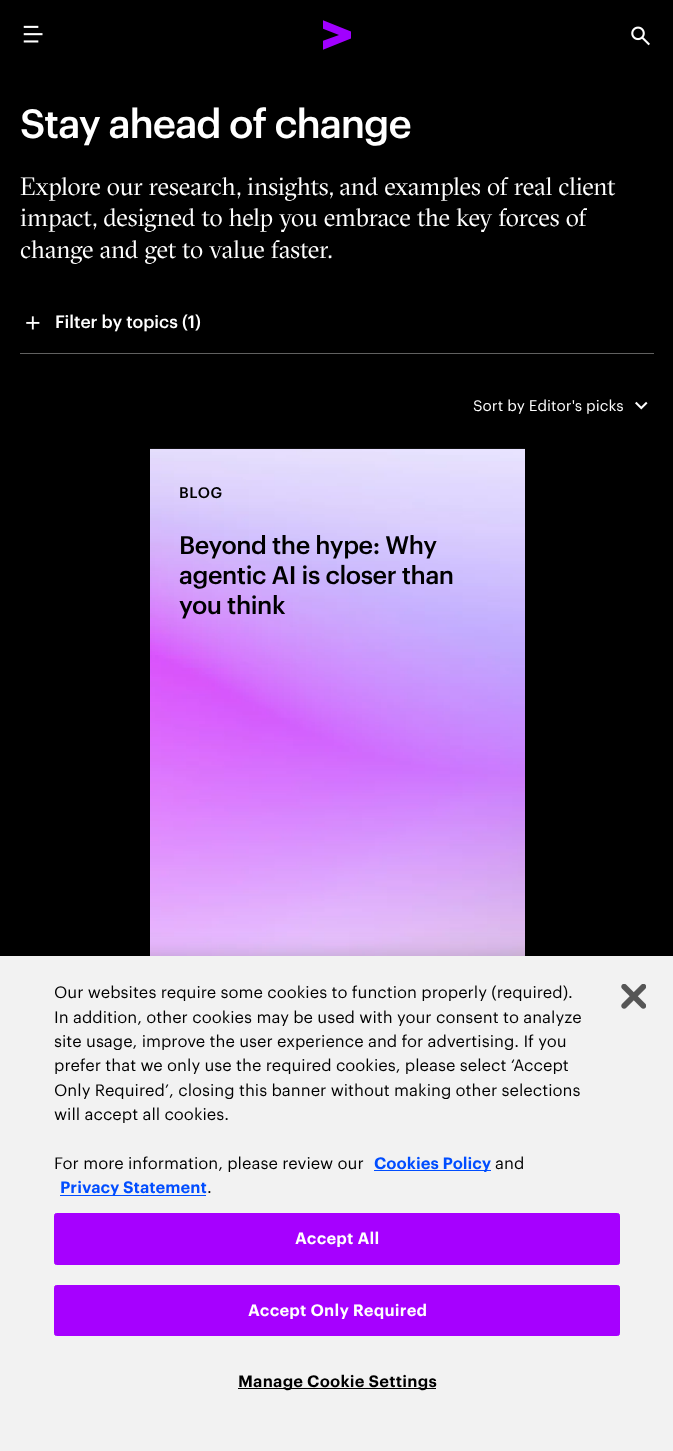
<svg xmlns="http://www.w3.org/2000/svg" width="673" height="1451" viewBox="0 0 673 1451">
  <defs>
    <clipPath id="clip1"><rect x="323" y="20" width="30" height="30"/></clipPath>
    <filter id="blur1" x="-50%" y="-200%" width="200%" height="500%"><feGaussianBlur stdDeviation="11"/></filter>
  </defs>
  <rect width="100%" height="100%" fill="#000000"/>
  <image x="23" y="25" width="20" height="18" href="img1.png"/>
  <g clip-path="url(#clip1)">
    <path d="M322.5 41L339 35L322.5 28.5V20L351 31.5V38.5L322.5 50Z" fill="#a100ff"/>
  </g>
  <image x="631" y="26" width="19" height="20" href="img2.png"/>
  <text x="20" y="138" font-family="Graphik" font-size="40" font-weight="500" letter-spacing="-1.2" fill="#ffffff">Stay ahead of change</text>
  <text x="20" y="195" font-family="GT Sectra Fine" font-size="25" font-weight="300" fill="#ffffff">Explore our research, insights, and examples of real client</text>
  <text x="20" y="226" font-family="GT Sectra Fine" font-size="25" font-weight="300" fill="#ffffff">impact, designed to help you embrace the key forces of</text>
  <text x="20" y="258" font-family="GT Sectra Fine" font-size="25" font-weight="300" fill="#ffffff">change and get to value faster.</text>
  <rect x="20" y="353" width="634" height="1" fill="#616160"/>
  <image x="26" y="316" width="14" height="14" href="img3.png"/>
  <text x="55" y="328" font-family="Graphik" font-size="17.5" font-weight="500" letter-spacing="-0.1" fill="#ffffff">Filter by topics (1)</text>
  <text x="473" y="411" font-family="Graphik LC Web" font-size="15" fill="#ffffff">Sort by Editor's picks</text>
  <image x="635" y="401" width="13" height="9" href="img4.png"/>
  <image x="150" y="448" width="375" height="508" href="img5.png"/>
  <text x="179" y="498" font-family="Graphik" font-size="15" font-weight="500" letter-spacing="0.5" fill="#000000">BLOG</text>
  <text x="179" y="554" font-family="Graphik" font-size="25" font-weight="500" letter-spacing="-0.5" fill="#000000">Beyond the hype: Why</text>
  <text x="179" y="584" font-family="Graphik" font-size="25" font-weight="500" letter-spacing="-0.5" fill="#000000">agentic AI is closer than</text>
  <text x="179" y="614" font-family="Graphik" font-size="25" font-weight="500" letter-spacing="-0.5" fill="#000000">you think</text>
  <rect x="0" y="956" width="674" height="495" fill="#000000" fill-opacity="0.2" filter="url(#blur1)"/>
  <rect x="0" y="956" width="673" height="495" fill="#f2f2f2"/>
  <text x="54" y="998" font-family="Graphik LC Web" font-size="16.25" fill="#000000">Our websites require some cookies to function properly (required).</text>
  <text x="54" y="1023" font-family="Graphik LC Web" font-size="16.25" fill="#000000">In addition, other cookies may be used with your consent to analyze</text>
  <text x="54" y="1047" font-family="Graphik LC Web" font-size="16.25" fill="#000000">site usage, improve the user experience and for advertising. If you</text>
  <text x="54" y="1071" font-family="Graphik LC Web" font-size="16.25" fill="#000000">prefer that we only use the required cookies, please select ‘Accept</text>
  <text x="54" y="1096" font-family="Graphik LC Web" font-size="16.25" fill="#000000">Only Required’, closing this banner without making other selections</text>
  <text x="54" y="1120" font-family="Graphik LC Web" font-size="16.25" fill="#000000">will accept all cookies.</text>
  <text x="54" y="1169" font-family="Graphik LC Web" font-size="16.25" fill="#000000">For more information, please review our</text>
  <rect x="374" y="1170" width="117" height="1" fill="#004dff"/>
  <text x="374" y="1169" font-family="Graphik LC Web" font-size="16.25" font-weight="600" fill="#004dff">Cookies Policy</text>
  <text x="495" y="1169" font-family="Graphik LC Web" font-size="16.25" fill="#000000">and</text>
  <rect x="60" y="1195" width="146" height="1" fill="#004dff"/>
  <text x="60" y="1193" font-family="Graphik LC Web" font-size="16.25" font-weight="600" fill="#004dff">Privacy Statement</text>
  <text x="207" y="1193" font-family="Graphik LC Web" font-size="16.25" fill="#000000">.</text>
  <rect x="54.5" y="1213.5" width="565" height="51" rx="2" fill="#a600ff" stroke="#a600ff"/>
  <text x="295" y="1244" font-family="Graphik LC Web" font-size="16.25" font-weight="600" letter-spacing="0.2" fill="#ffffff">Accept All</text>
  <rect x="54.5" y="1285.5" width="565" height="50" rx="2" fill="#a600ff" stroke="#a600ff"/>
  <text x="248" y="1316" font-family="Graphik LC Web" font-size="16.25" font-weight="600" letter-spacing="0.2" fill="#ffffff">Accept Only Required</text>
  <rect x="238" y="1388" width="198" height="1" fill="#000000"/>
  <text x="238" y="1387" font-family="Graphik LC Web" font-size="16.25" font-weight="600" letter-spacing="0.2" fill="#000000">Manage Cookie Settings</text>
  <image x="621" y="984" width="25" height="25" href="img6.png"/>
</svg>
